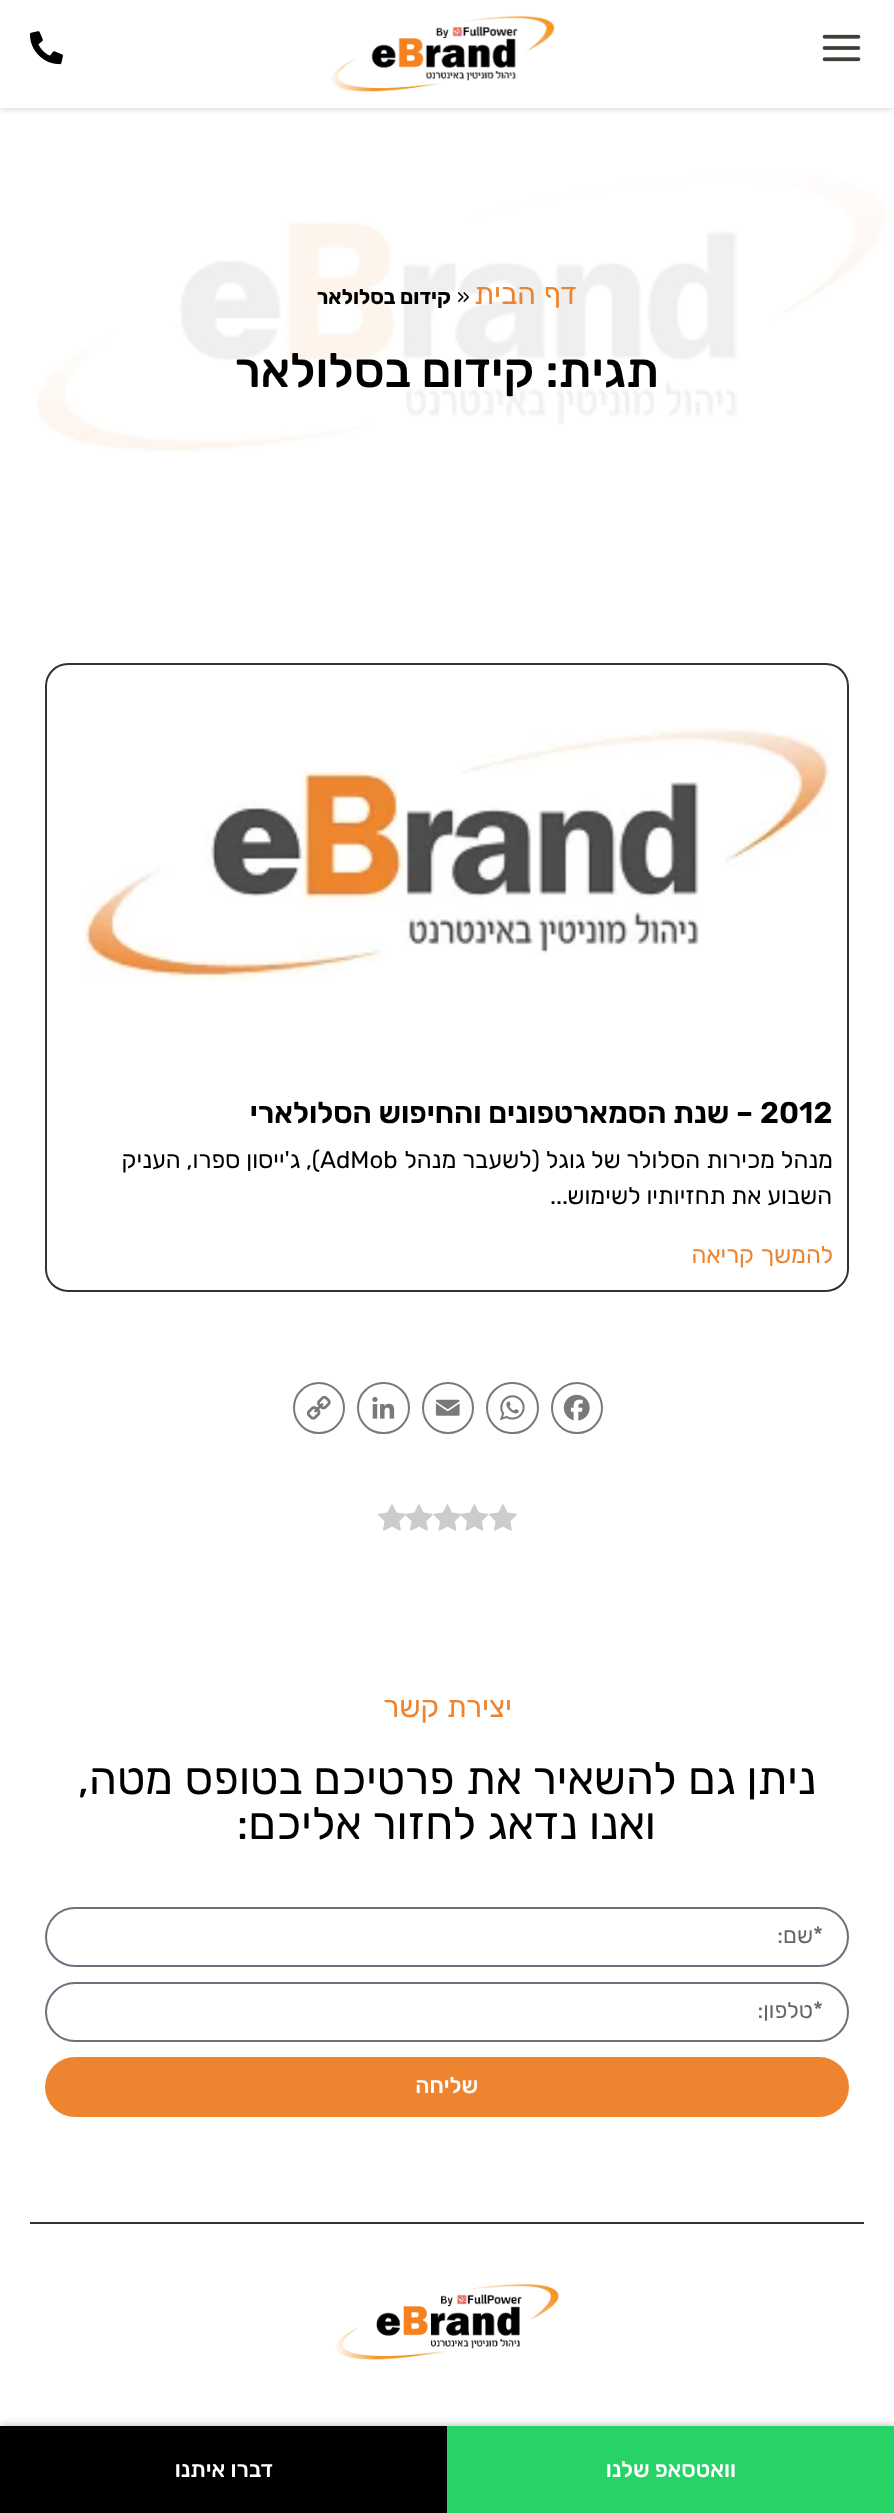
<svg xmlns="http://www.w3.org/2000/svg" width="894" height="2513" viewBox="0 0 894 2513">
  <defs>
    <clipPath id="clip1"><rect x="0" y="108" width="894" height="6"/></clipPath>
    <filter id="blur1" x="-50%" y="-200%" width="200%" height="500%"><feGaussianBlur stdDeviation="4.5"/></filter>
  </defs>
  <rect width="100%" height="100%" fill="#ffffff"/>
  <image x="32" y="169" width="857" height="291" href="img1.png"/>
  <text x="577" y="304" word-spacing="1" font-family="Rubik" font-size="30" direction="rtl" fill="#ed8530">דף הבית</text>
  <text x="457" y="304" font-family="Rubik" font-size="21" fill="#000000">»</text>
  <text x="451" y="304" font-family="Rubik" font-size="21" font-weight="bold" direction="rtl" fill="#000000">קידום בסלולאר</text>
  <text x="659" y="387" font-family="Rubik" font-size="48" font-weight="500" direction="rtl" fill="#000000">תגית: קידום בסלולאר</text>
  <rect x="46" y="664" width="802" height="627" rx="22" fill="none" stroke="#333333" stroke-width="2"/>
  <image x="84" y="728" width="747" height="255" href="img2.png"/>
  <text x="760" y="1123" font-family="Rubik" font-size="30" font-weight="600" fill="#000000">2012</text>
  <text x="753" y="1123" font-family="Rubik" font-size="30" font-weight="600" direction="rtl" fill="#000000">– שנת הסמארטפונים והחיפוש הסלולארי</text>
  <text x="833" y="1168" word-spacing="0.5" font-family="Rubik" font-size="24" direction="rtl" fill="#000000">מנהל מכירות הסלולר של גוגל (לשעבר מנהל</text>
  <text x="320" y="1168" font-family="Rubik" font-size="24" fill="#000000">AdMob</text>
  <text x="320" y="1168" font-family="Rubik" font-size="24" direction="rtl" fill="#000000">), ג'ייסון ספרו, העניק</text>
  <text x="832" y="1204" font-family="Rubik" font-size="24" direction="rtl" fill="#000000">השבוע את תחזיותיו לשימוש</text>
  <text x="550" y="1204" font-family="Rubik" font-size="24" fill="#000000">...</text>
  <text x="833" y="1263" word-spacing="1" font-family="Rubik" font-size="24" direction="rtl" fill="#ed8530">להמשך קריאה</text>
  <circle cx="577" cy="1408" r="25" fill="none" stroke="#797979" stroke-width="2"/>
  <image x="563" y="1394" width="27" height="27" href="img3.png"/>
  <rect x="487" y="1383" width="51" height="50" rx="25" fill="none" stroke="#797979" stroke-width="2"/>
  <image x="500" y="1395" width="25" height="26" href="img4.png"/>
  <circle cx="448" cy="1408" r="25" fill="none" stroke="#797979" stroke-width="2"/>
  <image x="435" y="1399" width="25" height="17" href="img5.png"/>
  <rect x="358" y="1383" width="51" height="50" rx="25" fill="none" stroke="#797979" stroke-width="2"/>
  <image x="372" y="1396" width="23" height="23" href="img6.png"/>
  <circle cx="319" cy="1408" r="25" fill="none" stroke="#797979" stroke-width="2"/>
  <image x="306" y="1395" width="25" height="25" href="img7.png"/>
  <image x="489" y="1504" width="28" height="27" href="img8.png"/>
  <image x="460" y="1504" width="29" height="27" href="img9.png"/>
  <image x="433" y="1504" width="28" height="27" href="img10.png"/>
  <image x="405" y="1504" width="28" height="27" href="img8.png"/>
  <image x="378" y="1504" width="28" height="27" href="img11.png"/>
  <rect x="30" y="2222" width="834" height="2" fill="#333333"/>
  <text x="512" y="1717" font-family="Rubik" font-size="30" direction="rtl" fill="#ed8530">יצירת קשר</text>
  <text x="816" y="1794" word-spacing="0.5" font-family="Rubik" font-size="45" direction="rtl" fill="#000000">ניתן גם להשאיר את פרטיכם בטופס מטה,</text>
  <text x="656" y="1839" word-spacing="0.5" font-family="Rubik" font-size="45" direction="rtl" fill="#000000">ואנו נדאג לחזור אליכם:</text>
  <rect x="46" y="1908" width="802" height="58" rx="29" fill="none" stroke="#69727d" stroke-width="2"/>
  <text x="823" y="1943" font-family="Rubik" font-size="22.5" direction="rtl" fill="#666666">*שם:</text>
  <rect x="46" y="1983" width="802" height="58" rx="29" fill="none" stroke="#69727d" stroke-width="2"/>
  <text x="823" y="2018" font-family="Rubik" font-size="22.5" direction="rtl" fill="#666666">*טלפון:</text>
  <rect x="45" y="2057" width="804" height="60" rx="30" fill="#ed8530"/>
  <text x="478" y="2093" font-family="Rubik" font-size="22.5" font-weight="500" direction="rtl" fill="#ffffff">שליחה</text>
  <image x="335" y="2283" width="224" height="77" href="img12.png"/>
  <g clip-path="url(#clip1)">
    <rect x="0" y="0" width="894" height="108" fill="#000000" fill-opacity="0.2" filter="url(#blur1)"/>
  </g>
  <image x="822" y="34" width="39" height="28" href="img13.png"/>
  <image x="331" y="15" width="224" height="77" href="img14.png"/>
  <image x="30" y="31" width="33" height="34" href="img15.png"/>
  <rect x="0" y="2426" width="894" height="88" fill="#000000" fill-opacity="0.3" filter="url(#blur1)"/>
  <rect x="447" y="2426" width="447" height="87" fill="#27d367"/>
  <text x="736" y="2477" font-family="Rubik" font-size="22.5" font-weight="500" direction="rtl" fill="#ffffff">וואטסאפ שלנו</text>
  <rect x="0" y="2426" width="447" height="87" fill="#000000"/>
  <text x="273" y="2477" font-family="Rubik" font-size="22.5" font-weight="500" direction="rtl" fill="#ffffff">דברו איתנו</text>
</svg>
